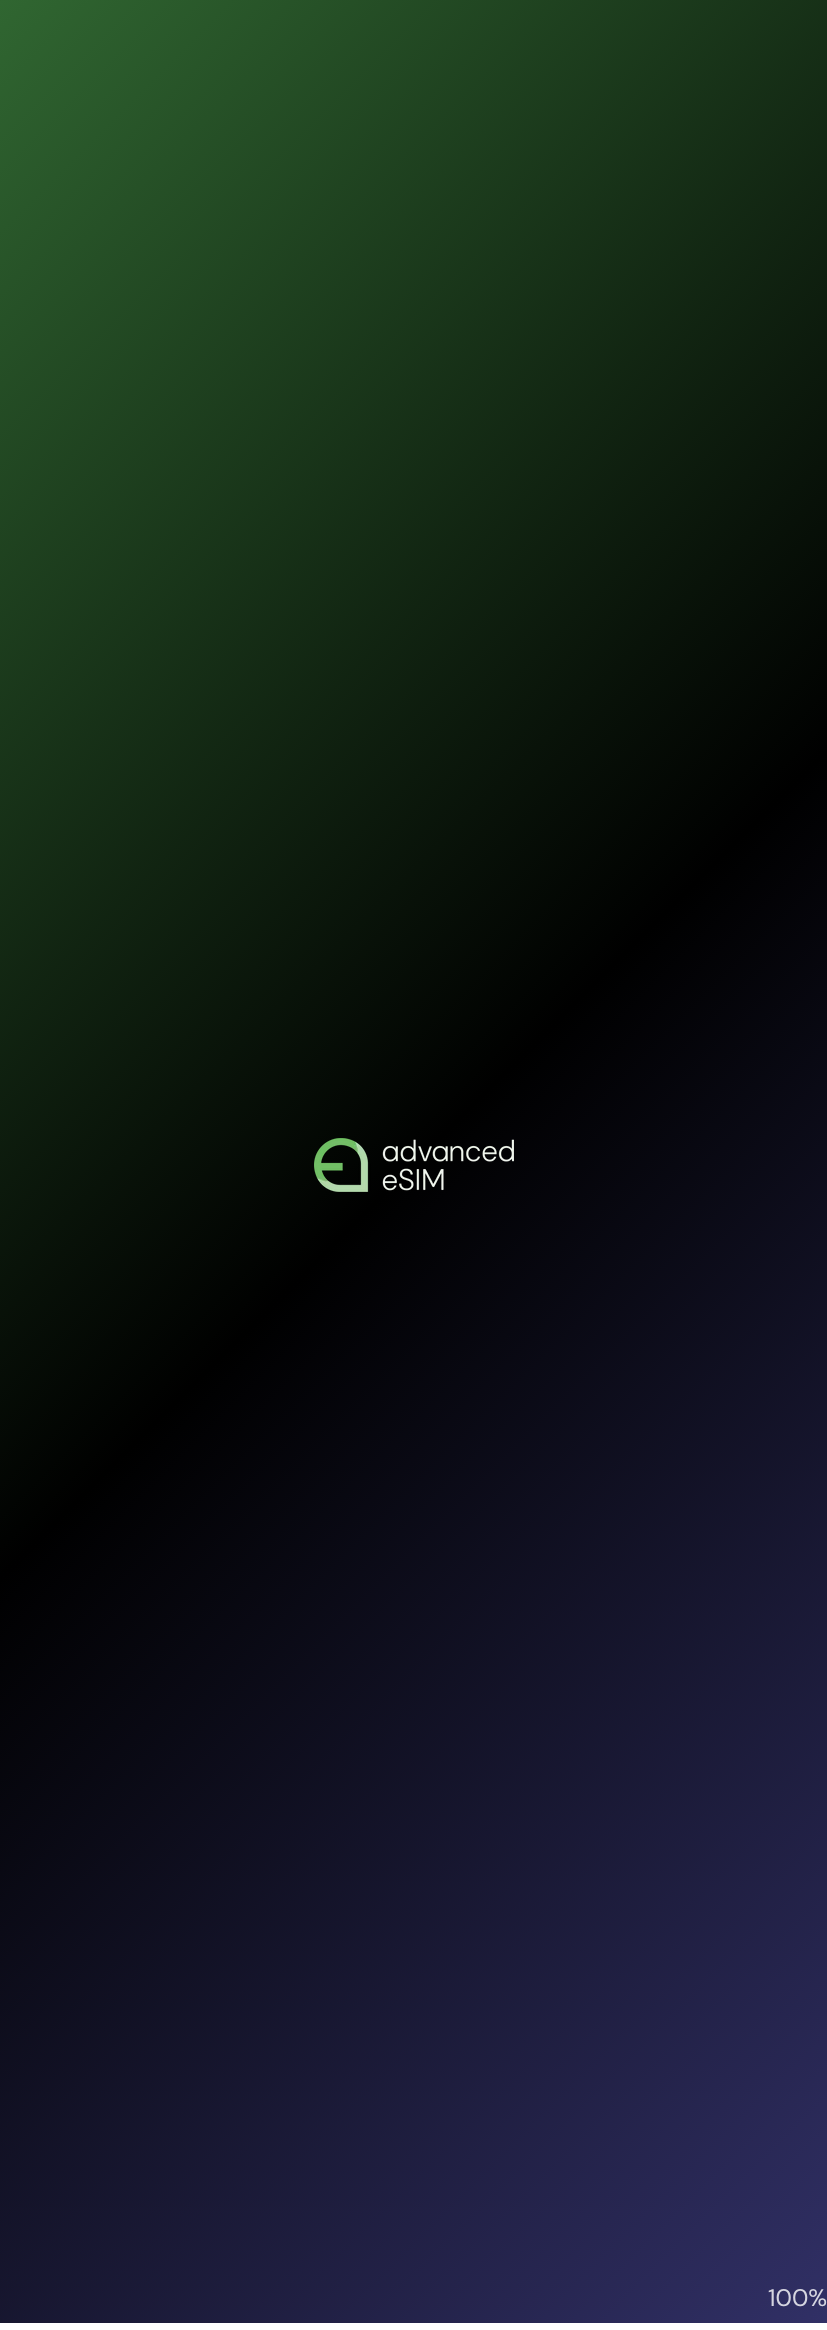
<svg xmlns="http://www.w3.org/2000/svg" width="827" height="2330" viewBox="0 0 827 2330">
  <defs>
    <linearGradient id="g1" gradientUnits="userSpaceOnUse" x1="-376" y1="376" x2="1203" y2="1954"><stop offset="0" stop-color="#306631"/><stop offset="0.5" stop-color="#000000"/><stop offset="1" stop-color="#313066"/></linearGradient>
  </defs>
  <rect width="100%" height="100%" fill="#ffffff"/>
  <rect x="0" y="0" width="827" height="2323" fill="url(#g1)"/>
  <image x="314" y="1138" width="200" height="54" href="img1.png"/>
  <text x="768" y="2306" font-family="DM Sans" font-size="24" fill="#d5d5e0">100%</text>
</svg>
